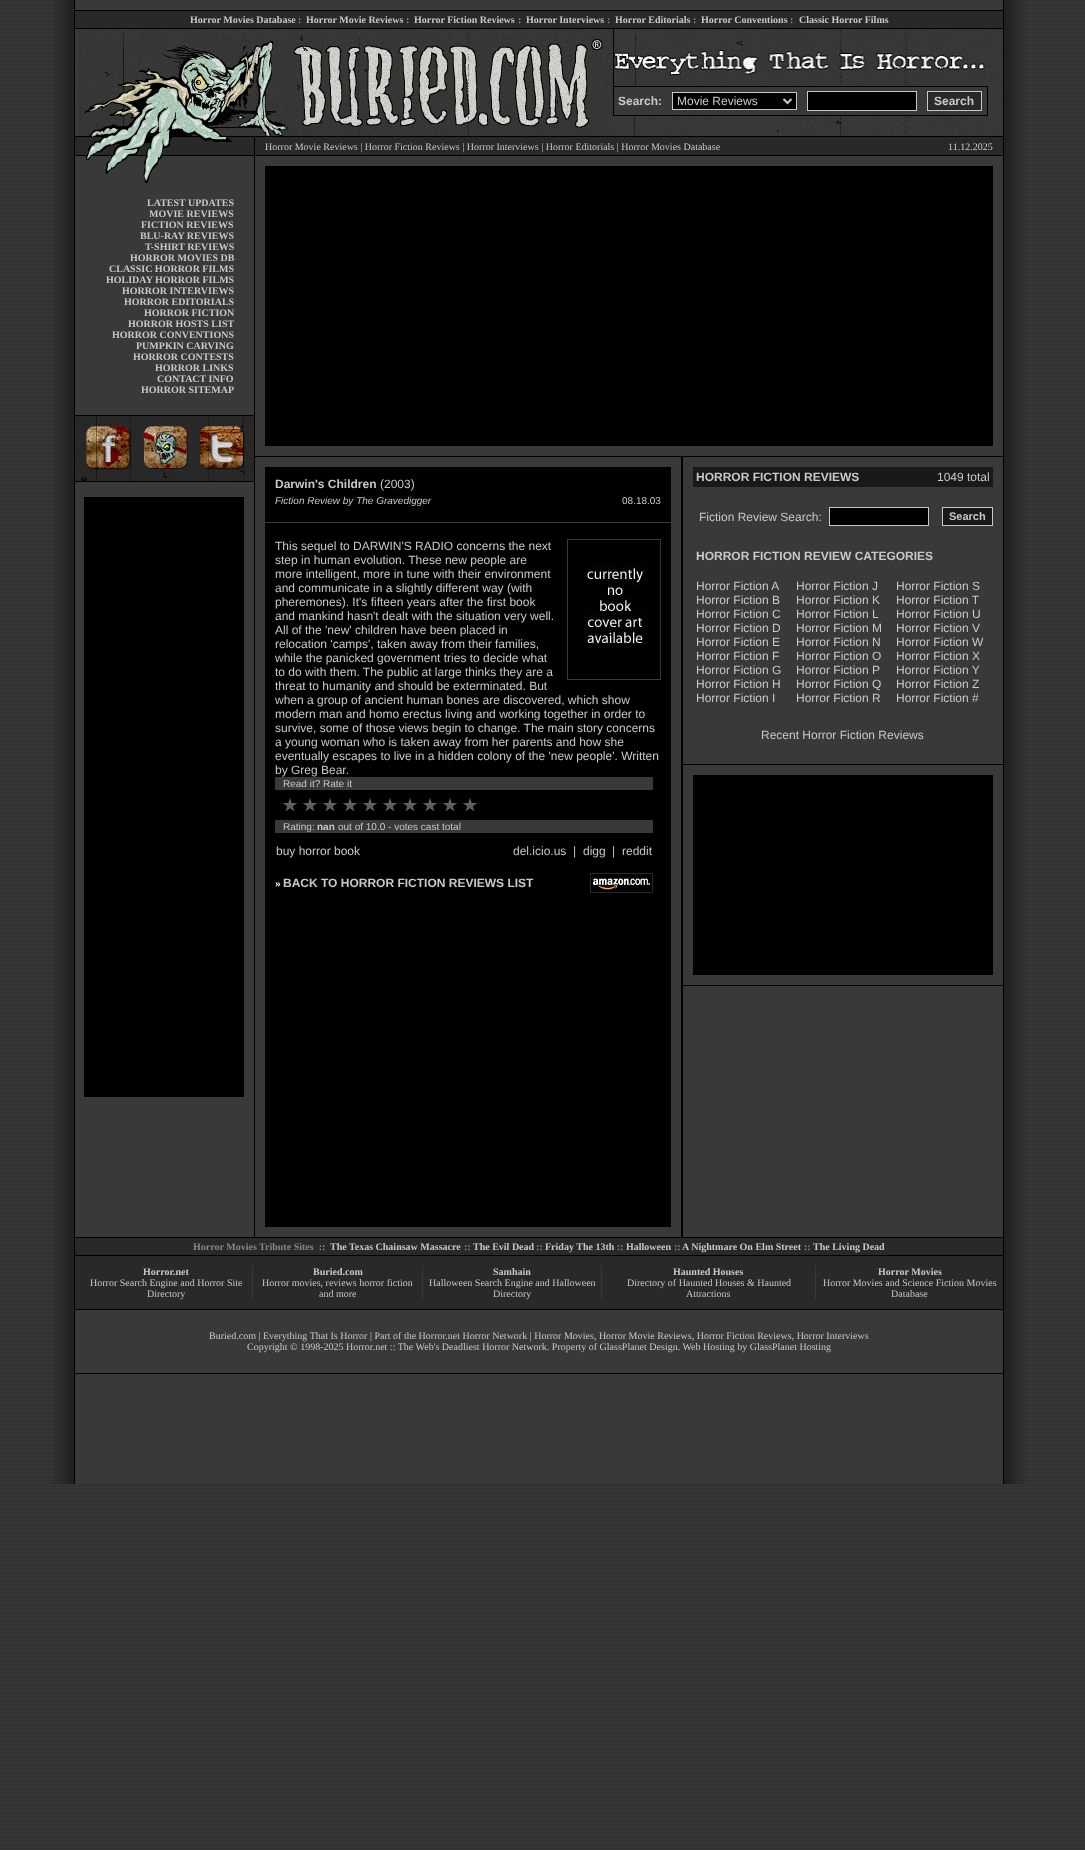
<svg xmlns="http://www.w3.org/2000/svg" width="1085" height="1850" viewBox="0 0 1085 1850">
  <rect width="100%" height="100%" fill="#393939"/>
  <image x="0" y="0" width="1085" height="1849" href="img1.png"/>
  <image x="53" y="0" width="21" height="1484" href="img2.png"/>
  <rect x="74" y="0" width="1" height="1484" fill="#000000"/>
  <rect x="75" y="30" width="928" height="1207" fill="#393939"/>
  <image x="254" y="29" width="428" height="1208" href="img3.png"/>
  <rect x="75" y="0" width="928" height="9" fill="#393939"/>
  <rect x="75" y="10" width="928" height="1" fill="#000000"/>
  <rect x="75" y="11" width="928" height="17" fill="#292929"/>
  <text x="190" y="23" font-family="Liberation Serif" font-size="10" font-weight="bold" fill="#c8c8c8">Horror Movies Database</text>
  <text x="298" y="23" font-family="Liberation Serif" font-size="10" font-weight="bold" fill="#888888">:</text>
  <text x="306" y="23" font-family="Liberation Serif" font-size="10" font-weight="bold" fill="#c8c8c8">Horror Movie Reviews</text>
  <text x="406" y="23" font-family="Liberation Serif" font-size="10" font-weight="bold" fill="#888888">:</text>
  <text x="414" y="23" font-family="Liberation Serif" font-size="10" font-weight="bold" fill="#c8c8c8">Horror Fiction Reviews</text>
  <text x="518" y="23" font-family="Liberation Serif" font-size="10" font-weight="bold" fill="#888888">:</text>
  <text x="526" y="23" font-family="Liberation Serif" font-size="10" font-weight="bold" fill="#c8c8c8">Horror Interviews</text>
  <text x="607" y="23" font-family="Liberation Serif" font-size="10" font-weight="bold" fill="#888888">:</text>
  <text x="615" y="23" font-family="Liberation Serif" font-size="10" font-weight="bold" fill="#c8c8c8">Horror Editorials</text>
  <text x="693" y="23" font-family="Liberation Serif" font-size="10" font-weight="bold" fill="#888888">:</text>
  <text x="701" y="23" font-family="Liberation Serif" font-size="10" font-weight="bold" fill="#c8c8c8">Horror Conventions</text>
  <text x="790" y="23" font-family="Liberation Serif" font-size="10" font-weight="bold" fill="#888888">:</text>
  <text x="799" y="23" font-family="Liberation Serif" font-size="10" font-weight="bold" fill="#c8c8c8">Classic Horror Films</text>
  <rect x="75" y="28" width="928" height="1" fill="#000000"/>
  <image x="78" y="29" width="176" height="57" href="img4.png"/>
  <image x="254" y="29" width="359" height="57" href="img5.png"/>
  <image x="614" y="29" width="389" height="57" href="img6.png"/>
  <image x="78" y="86" width="176" height="50" href="img7.png"/>
  <image x="254" y="86" width="359" height="50" href="img8.png"/>
  <image x="613" y="86" width="390" height="50" href="img9.png"/>
  <rect x="613.5" y="86.5" width="374" height="29" fill="#393939" stroke="#000000"/>
  <text x="618" y="105" font-family="Liberation Sans" font-size="12" font-weight="bold" fill="#c8c8c8">Search:</text>
  <rect x="672.5" y="92.5" width="124" height="17" fill="#000000" stroke="#c8c8c8"/>
  <path d="M783.5 99L787.5 103L791.5 99" fill="none" stroke="#c8c8c8" stroke-width="2"/>
  <text x="677" y="105" font-family="Liberation Sans" font-size="12" fill="#c8c8c8">Movie Reviews</text>
  <rect x="807.5" y="91.5" width="109" height="19" fill="#000000" stroke="#c8c8c8"/>
  <rect x="927.5" y="91.5" width="54" height="19" fill="#292929" stroke="#c8c8c8"/>
  <text x="934" y="105" font-family="Liberation Sans" font-size="12" font-weight="bold" fill="#c8c8c8">Search</text>
  <image x="75" y="136" width="179" height="20" href="img10.png"/>
  <rect x="255" y="136" width="748" height="1" fill="#000000"/>
  <rect x="255" y="137" width="748" height="18" fill="#292929"/>
  <text x="265" y="150" font-family="Liberation Serif" font-size="10" fill="#c8c8c8">Horror Movie Reviews | Horror Fiction Reviews | Horror Interviews | Horror Editorials | Horror Movies Database</text>
  <text x="948" y="150" font-family="Liberation Serif" font-size="10" fill="#c8c8c8">11.12.2025</text>
  <rect x="255" y="155" width="748" height="1" fill="#000000"/>
  <image x="86" y="156" width="76" height="27" href="img11.png"/>
  <text x="147" y="206" font-family="Liberation Serif" font-size="10" font-weight="bold" fill="#c8c8c8">LATEST UPDATES</text>
  <text x="149" y="217" font-family="Liberation Serif" font-size="10" font-weight="bold" fill="#c8c8c8">MOVIE REVIEWS</text>
  <text x="141" y="228" font-family="Liberation Serif" font-size="10" font-weight="bold" fill="#c8c8c8">FICTION REVIEWS</text>
  <text x="140" y="239" font-family="Liberation Serif" font-size="10" font-weight="bold" fill="#c8c8c8">BLU-RAY REVIEWS</text>
  <text x="145" y="250" font-family="Liberation Serif" font-size="10" font-weight="bold" fill="#c8c8c8">T-SHIRT REVIEWS</text>
  <text x="130" y="261" font-family="Liberation Serif" font-size="10" font-weight="bold" fill="#c8c8c8">HORROR MOVIES DB</text>
  <text x="109" y="272" font-family="Liberation Serif" font-size="10" font-weight="bold" fill="#c8c8c8">CLASSIC HORROR FILMS</text>
  <text x="106" y="283" font-family="Liberation Serif" font-size="10" font-weight="bold" fill="#c8c8c8">HOLIDAY HORROR FILMS</text>
  <text x="122" y="294" font-family="Liberation Serif" font-size="10" font-weight="bold" fill="#c8c8c8">HORROR INTERVIEWS</text>
  <text x="124" y="305" font-family="Liberation Serif" font-size="10" font-weight="bold" fill="#c8c8c8">HORROR EDITORIALS</text>
  <text x="144" y="316" font-family="Liberation Serif" font-size="10" font-weight="bold" fill="#c8c8c8">HORROR FICTION</text>
  <text x="128" y="327" font-family="Liberation Serif" font-size="10" font-weight="bold" fill="#c8c8c8">HORROR HOSTS LIST</text>
  <text x="112" y="338" font-family="Liberation Serif" font-size="10" font-weight="bold" fill="#c8c8c8">HORROR CONVENTIONS</text>
  <text x="136" y="349" font-family="Liberation Serif" font-size="10" font-weight="bold" fill="#c8c8c8">PUMPKIN CARVING</text>
  <text x="133" y="360" font-family="Liberation Serif" font-size="10" font-weight="bold" fill="#c8c8c8">HORROR CONTESTS</text>
  <text x="155" y="371" font-family="Liberation Serif" font-size="10" font-weight="bold" fill="#c8c8c8">HORROR LINKS</text>
  <text x="157" y="382" font-family="Liberation Serif" font-size="10" font-weight="bold" fill="#c8c8c8">CONTACT INFO</text>
  <text x="141" y="393" font-family="Liberation Serif" font-size="10" font-weight="bold" fill="#c8c8c8">HORROR SITEMAP</text>
  <rect x="75" y="415" width="179" height="1" fill="#000000"/>
  <image x="75" y="416" width="60" height="65" href="img12.png"/>
  <image x="135" y="416" width="59" height="65" href="img13.png"/>
  <image x="194" y="416" width="60" height="65" href="img14.png"/>
  <rect x="75" y="481" width="179" height="1" fill="#000000"/>
  <rect x="84" y="497" width="160" height="600" fill="#000000"/>
  <rect x="265" y="156" width="417" height="10" fill="#393939"/>
  <rect x="670" y="166" width="323" height="280" fill="#000000"/>
  <rect x="265" y="446" width="417" height="10" fill="#393939"/>
  <rect x="255" y="456" width="748" height="1" fill="#000000"/>
  <rect x="265" y="457" width="405" height="10" fill="#393939"/>
  <rect x="670" y="467" width="1" height="760" fill="#000000"/>
  <text x="275" y="488" font-family="Liberation Sans" font-size="12" font-weight="bold" fill="#c8c8c8">Darwin's Children</text>
  <text x="380" y="488" font-family="Liberation Sans" font-size="12" fill="#c8c8c8">(2003)</text>
  <text x="275" y="504" font-family="Liberation Sans" font-size="10" font-style="italic" fill="#c8c8c8">Fiction Review by The Gravedigger</text>
  <text x="622" y="504" font-family="Liberation Sans" font-size="10" fill="#c8c8c8">08.18.03</text>
  <rect x="265" y="522" width="406" height="1" fill="#393939"/>
  <text x="275" y="550" font-family="Liberation Sans" font-size="12" fill="#c8c8c8">This sequel to DARWIN'S RADIO concerns the next</text>
  <rect x="567.5" y="539.5" width="93" height="140" fill="none" stroke="#393939"/>
  <image x="584" y="564" width="64" height="80" href="img15.png"/>
  <text x="275" y="564" font-family="Liberation Sans" font-size="12" fill="#c8c8c8">step in human evolution. These new people are</text>
  <text x="275" y="578" font-family="Liberation Sans" font-size="12" fill="#c8c8c8">more intelligent, more in tune with their environment</text>
  <text x="275" y="592" font-family="Liberation Sans" font-size="12" fill="#c8c8c8">and communicate in a slightly different way (with</text>
  <text x="275" y="606" font-family="Liberation Sans" font-size="12" fill="#c8c8c8">pheremones). It's fifteen years after the first book</text>
  <text x="275" y="620" font-family="Liberation Sans" font-size="12" fill="#c8c8c8">and mankind hasn't dealt with the situation very well.</text>
  <text x="275" y="634" font-family="Liberation Sans" font-size="12" fill="#c8c8c8">All of the 'new' children have been placed in</text>
  <text x="275" y="648" font-family="Liberation Sans" font-size="12" fill="#c8c8c8">relocation 'camps', taken away from their families,</text>
  <text x="275" y="662" font-family="Liberation Sans" font-size="12" fill="#c8c8c8">while the panicked government tries to decide what</text>
  <text x="275" y="676" font-family="Liberation Sans" font-size="12" fill="#c8c8c8">to do with them. The public at large thinks they are a</text>
  <text x="275" y="690" font-family="Liberation Sans" font-size="12" fill="#c8c8c8">threat to humanity and should be exterminated. But</text>
  <text x="275" y="704" font-family="Liberation Sans" font-size="12" fill="#c8c8c8">when a group of ancient human bones are discovered, which show</text>
  <text x="275" y="718" font-family="Liberation Sans" font-size="12" fill="#c8c8c8">modern man and homo erectus living and working together in order to</text>
  <text x="275" y="732" font-family="Liberation Sans" font-size="12" fill="#c8c8c8">survive, some of those views begin to change. The main story concerns</text>
  <text x="275" y="746" font-family="Liberation Sans" font-size="12" fill="#c8c8c8">a young woman who is taken away from her parents and how she</text>
  <text x="275" y="760" font-family="Liberation Sans" font-size="12" fill="#c8c8c8">eventually escapes to live in a hidden colony of the 'new people'. Written</text>
  <text x="275" y="774" font-family="Liberation Sans" font-size="12" fill="#c8c8c8">by Greg Bear.</text>
  <rect x="275" y="777" width="378" height="13" fill="#393939"/>
  <text x="283" y="787" font-family="Liberation Sans" font-size="10" fill="#c8c8c8">Read it? Rate it</text>
  <image x="283" y="798" width="194" height="14" href="img16.png"/>
  <rect x="275" y="820" width="378" height="13" fill="#393939"/>
  <text x="283" y="830" font-family="Liberation Sans" font-size="10" fill="#c8c8c8">Rating:</text>
  <text x="317" y="830" font-family="Liberation Sans" font-size="10" font-weight="bold" fill="#c8c8c8">nan</text>
  <text x="338" y="830" font-family="Liberation Sans" font-size="10" fill="#c8c8c8">out of 10.0 - votes cast total</text>
  <text x="276" y="855" font-family="Liberation Sans" font-size="12" fill="#c8c8c8">buy horror book</text>
  <text x="513" y="855" font-family="Liberation Sans" font-size="12" fill="#c8c8c8">del.icio.us</text>
  <text x="573" y="855" font-family="Liberation Sans" font-size="12" fill="#c8c8c8">|</text>
  <text x="583" y="855" font-family="Liberation Sans" font-size="12" fill="#c8c8c8">digg</text>
  <text x="612" y="855" font-family="Liberation Sans" font-size="12" fill="#c8c8c8">|</text>
  <text x="622" y="855" font-family="Liberation Sans" font-size="12" fill="#c8c8c8">reddit</text>
  <text x="275" y="887" font-family="Liberation Sans" font-size="10" font-weight="bold" fill="#ffffff">»</text>
  <text x="283" y="887" font-family="Liberation Sans" font-size="12" font-weight="bold" fill="#c8c8c8">BACK TO HORROR FICTION REVIEWS LIST</text>
  <image x="590" y="873" width="63" height="20" href="img17.png"/>
  <rect x="682" y="457" width="1" height="780" fill="#000000"/>
  <rect x="693" y="467" width="300" height="20" fill="#191919"/>
  <text x="696" y="481" font-family="Liberation Sans" font-size="12" font-weight="bold" fill="#c8c8c8">HORROR FICTION REVIEWS</text>
  <text x="937" y="481" font-family="Liberation Sans" font-size="12" fill="#c8c8c8">1049 total</text>
  <text x="699" y="521" font-family="Liberation Sans" font-size="12" fill="#c8c8c8">Fiction Review Search:</text>
  <rect x="829.5" y="507.5" width="99" height="18" fill="#000000" stroke="#c8c8c8"/>
  <rect x="942.5" y="507.5" width="50" height="18" fill="#191919" stroke="#c8c8c8"/>
  <text x="949" y="520" font-family="Liberation Sans" font-size="11" font-weight="bold" fill="#c8c8c8">Search</text>
  <text x="696" y="560" font-family="Liberation Sans" font-size="12" font-weight="bold" fill="#c8c8c8">HORROR FICTION REVIEW CATEGORIES</text>
  <text x="696" y="590" font-family="Liberation Sans" font-size="12" fill="#c8c8c8">Horror Fiction A</text>
  <text x="696" y="604" font-family="Liberation Sans" font-size="12" fill="#c8c8c8">Horror Fiction B</text>
  <text x="696" y="618" font-family="Liberation Sans" font-size="12" fill="#c8c8c8">Horror Fiction C</text>
  <text x="696" y="632" font-family="Liberation Sans" font-size="12" fill="#c8c8c8">Horror Fiction D</text>
  <text x="696" y="646" font-family="Liberation Sans" font-size="12" fill="#c8c8c8">Horror Fiction E</text>
  <text x="696" y="660" font-family="Liberation Sans" font-size="12" fill="#c8c8c8">Horror Fiction F</text>
  <text x="696" y="674" font-family="Liberation Sans" font-size="12" fill="#c8c8c8">Horror Fiction G</text>
  <text x="696" y="688" font-family="Liberation Sans" font-size="12" fill="#c8c8c8">Horror Fiction H</text>
  <text x="696" y="702" font-family="Liberation Sans" font-size="12" fill="#c8c8c8">Horror Fiction I</text>
  <text x="796" y="590" font-family="Liberation Sans" font-size="12" fill="#c8c8c8">Horror Fiction J</text>
  <text x="796" y="604" font-family="Liberation Sans" font-size="12" fill="#c8c8c8">Horror Fiction K</text>
  <text x="796" y="618" font-family="Liberation Sans" font-size="12" fill="#c8c8c8">Horror Fiction L</text>
  <text x="796" y="632" font-family="Liberation Sans" font-size="12" fill="#c8c8c8">Horror Fiction M</text>
  <text x="796" y="646" font-family="Liberation Sans" font-size="12" fill="#c8c8c8">Horror Fiction N</text>
  <text x="796" y="660" font-family="Liberation Sans" font-size="12" fill="#c8c8c8">Horror Fiction O</text>
  <text x="796" y="674" font-family="Liberation Sans" font-size="12" fill="#c8c8c8">Horror Fiction P</text>
  <text x="796" y="688" font-family="Liberation Sans" font-size="12" fill="#c8c8c8">Horror Fiction Q</text>
  <text x="796" y="702" font-family="Liberation Sans" font-size="12" fill="#c8c8c8">Horror Fiction R</text>
  <text x="896" y="590" font-family="Liberation Sans" font-size="12" fill="#c8c8c8">Horror Fiction S</text>
  <text x="896" y="604" font-family="Liberation Sans" font-size="12" fill="#c8c8c8">Horror Fiction T</text>
  <text x="896" y="618" font-family="Liberation Sans" font-size="12" fill="#c8c8c8">Horror Fiction U</text>
  <text x="896" y="632" font-family="Liberation Sans" font-size="12" fill="#c8c8c8">Horror Fiction V</text>
  <text x="896" y="646" font-family="Liberation Sans" font-size="12" fill="#c8c8c8">Horror Fiction W</text>
  <text x="896" y="660" font-family="Liberation Sans" font-size="12" fill="#c8c8c8">Horror Fiction X</text>
  <text x="896" y="674" font-family="Liberation Sans" font-size="12" fill="#c8c8c8">Horror Fiction Y</text>
  <text x="896" y="688" font-family="Liberation Sans" font-size="12" fill="#c8c8c8">Horror Fiction Z</text>
  <text x="896" y="702" font-family="Liberation Sans" font-size="12" fill="#c8c8c8">Horror Fiction #</text>
  <text x="761" y="739" font-family="Liberation Sans" font-size="12" fill="#c8c8c8">Recent Horror Fiction Reviews</text>
  <rect x="683" y="764" width="320" height="1" fill="#000000"/>
  <rect x="693" y="775" width="300" height="200" fill="#000000"/>
  <rect x="683" y="985" width="320" height="1" fill="#000000"/>
  <rect x="265" y="1227" width="405" height="10" fill="#393939"/>
  <rect x="75" y="1238" width="928" height="17" fill="#292929"/>
  <rect x="75" y="1237" width="928" height="1" fill="#000000"/>
  <text x="193" y="1250" font-family="Liberation Serif" font-size="10" font-weight="bold" fill="#888888" xml:space="preserve">Horror Movies Tribute Sites  ::</text>
  <text x="330" y="1250" font-family="Liberation Serif" font-size="10" font-weight="bold" fill="#c8c8c8">The Texas Chainsaw Massacre</text>
  <text x="464" y="1250" font-family="Liberation Serif" font-size="10" font-weight="bold" fill="#888888">::</text>
  <text x="473" y="1250" font-family="Liberation Serif" font-size="10" font-weight="bold" fill="#c8c8c8">The Evil Dead</text>
  <text x="536" y="1250" font-family="Liberation Serif" font-size="10" font-weight="bold" fill="#888888">::</text>
  <text x="545" y="1250" font-family="Liberation Serif" font-size="10" font-weight="bold" fill="#c8c8c8">Friday The 13th</text>
  <text x="617" y="1250" font-family="Liberation Serif" font-size="10" font-weight="bold" fill="#888888">::</text>
  <text x="626" y="1250" font-family="Liberation Serif" font-size="10" font-weight="bold" fill="#c8c8c8">Halloween</text>
  <text x="674" y="1250" font-family="Liberation Serif" font-size="10" font-weight="bold" fill="#888888">::</text>
  <text x="682" y="1250" font-family="Liberation Serif" font-size="10" font-weight="bold" fill="#c8c8c8">A Nightmare On Elm Street</text>
  <text x="804" y="1250" font-family="Liberation Serif" font-size="10" font-weight="bold" fill="#888888">::</text>
  <text x="813" y="1250" font-family="Liberation Serif" font-size="10" font-weight="bold" fill="#c8c8c8">The Living Dead</text>
  <rect x="75" y="1255" width="928" height="1" fill="#000000"/>
  <rect x="75" y="1256" width="928" height="53" fill="#292929"/>
  <text x="143" y="1275" font-family="Liberation Serif" font-size="10" font-weight="bold" fill="#c8c8c8">Horror.net</text>
  <text x="90" y="1286" font-family="Liberation Serif" font-size="10" fill="#c8c8c8">Horror Search Engine and Horror Site</text>
  <text x="147" y="1297" font-family="Liberation Serif" font-size="10" fill="#c8c8c8">Directory</text>
  <rect x="252" y="1266" width="1" height="33" fill="#393939"/>
  <text x="313" y="1275" font-family="Liberation Serif" font-size="10" font-weight="bold" fill="#c8c8c8">Buried.com</text>
  <text x="262" y="1286" font-family="Liberation Serif" font-size="10" fill="#c8c8c8">Horror movies, reviews horror fiction</text>
  <text x="319" y="1297" font-family="Liberation Serif" font-size="10" fill="#c8c8c8">and more</text>
  <rect x="422" y="1266" width="1" height="33" fill="#393939"/>
  <text x="493" y="1275" font-family="Liberation Serif" font-size="10" font-weight="bold" fill="#c8c8c8">Samhain</text>
  <text x="429" y="1286" font-family="Liberation Serif" font-size="10" fill="#c8c8c8">Halloween Search Engine and Halloween</text>
  <text x="493" y="1297" font-family="Liberation Serif" font-size="10" fill="#c8c8c8">Directory</text>
  <rect x="601" y="1266" width="1" height="33" fill="#393939"/>
  <text x="673" y="1275" font-family="Liberation Serif" font-size="10" font-weight="bold" fill="#c8c8c8">Haunted Houses</text>
  <text x="627" y="1286" font-family="Liberation Serif" font-size="10" fill="#c8c8c8">Directory of Haunted Houses &amp; Haunted</text>
  <text x="686" y="1297" font-family="Liberation Serif" font-size="10" fill="#c8c8c8">Attractions</text>
  <rect x="815" y="1266" width="1" height="33" fill="#393939"/>
  <text x="878" y="1275" font-family="Liberation Serif" font-size="10" font-weight="bold" fill="#c8c8c8">Horror Movies</text>
  <text x="823" y="1286" font-family="Liberation Serif" font-size="10" fill="#c8c8c8">Horror Movies and Science Fiction Movies</text>
  <text x="891" y="1297" font-family="Liberation Serif" font-size="10" fill="#c8c8c8">Database</text>
  <rect x="75" y="1309" width="928" height="1" fill="#000000"/>
  <rect x="75" y="1310" width="928" height="53" fill="#393939"/>
  <text x="209" y="1339" font-family="Liberation Serif" font-size="10" fill="#c8c8c8">Buried.com | Everything That Is Horror | Part of the Horror.net Horror Network | Horror Movies, Horror Movie Reviews, Horror Fiction Reviews, Horror Interviews</text>
  <text x="247" y="1350" font-family="Liberation Serif" font-size="10" fill="#c8c8c8">Copyright © 1998-2025 Horror.net :: The Web's Deadliest Horror Network. Property of GlassPlanet Design. Web Hosting by GlassPlanet Hosting</text>
  <rect x="75" y="1364" width="928" height="119" fill="#393939"/>
  <rect x="75" y="1373" width="928" height="1" fill="#000000"/>
  <rect x="1003" y="0" width="1" height="1484" fill="#000000"/>
  <image x="1004" y="0" width="21" height="1484" href="img18.png"/>
</svg>
